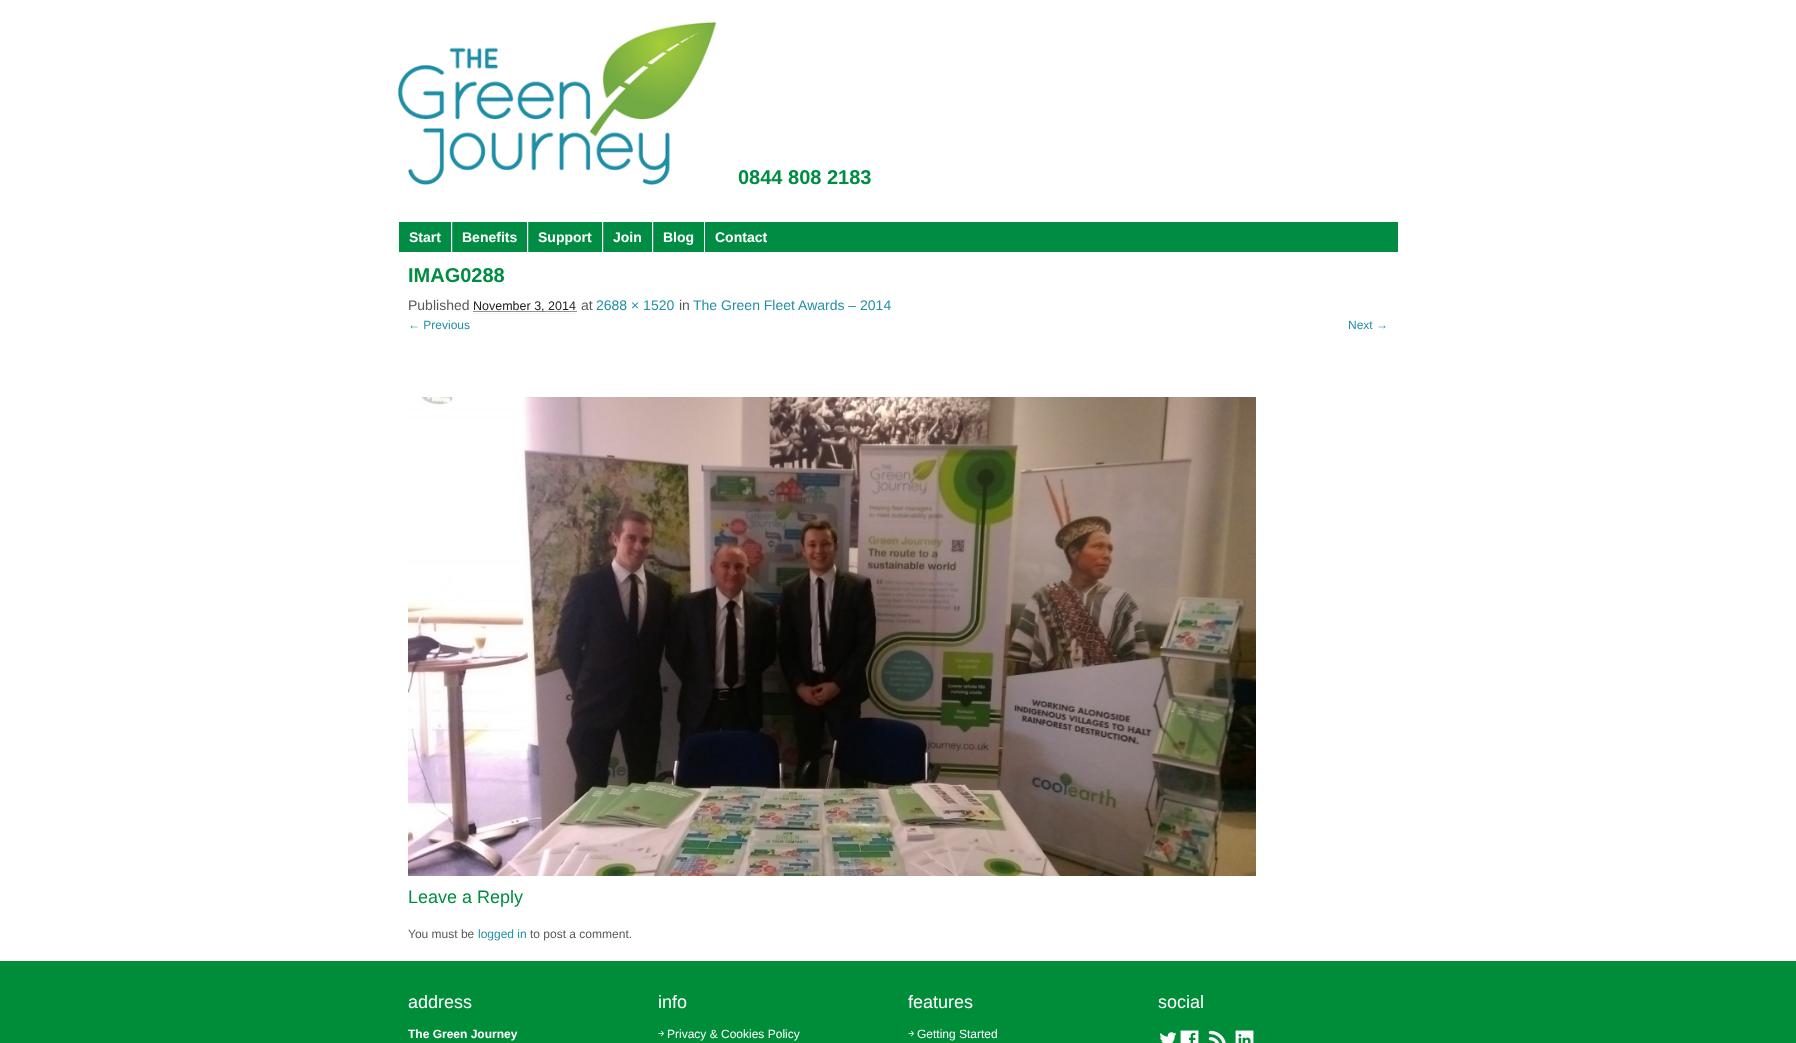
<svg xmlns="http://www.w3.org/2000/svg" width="1796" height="1043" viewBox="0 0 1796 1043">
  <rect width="100%" height="100%" fill="#ffffff"/>
  <image x="398" y="22" width="319" height="163" href="img1.png"/>
  <text x="738" y="184" font-family="Liberation Sans" font-size="20" font-weight="bold" fill="#008d43">0844 808 2183</text>
  <rect x="399" y="222" width="999" height="30" fill="#008d43"/>
  <rect x="451" y="222" width="1" height="30" fill="#ffffff"/>
  <text x="409" y="242" font-family="Liberation Sans" font-size="14" font-weight="bold" fill="#ffffff">Start</text>
  <rect x="452" y="222" width="1" height="30" fill="#33a469"/>
  <rect x="527" y="222" width="1" height="30" fill="#ffffff"/>
  <text x="462" y="242" font-family="Liberation Sans" font-size="14" font-weight="bold" fill="#ffffff">Benefits</text>
  <rect x="528" y="222" width="1" height="30" fill="#33a469"/>
  <rect x="602" y="222" width="1" height="30" fill="#ffffff"/>
  <text x="538" y="242" font-family="Liberation Sans" font-size="14" font-weight="bold" fill="#ffffff">Support</text>
  <rect x="603" y="222" width="1" height="30" fill="#33a469"/>
  <rect x="652" y="222" width="1" height="30" fill="#ffffff"/>
  <text x="613" y="242" font-family="Liberation Sans" font-size="14" font-weight="bold" fill="#ffffff">Join</text>
  <rect x="653" y="222" width="1" height="30" fill="#33a469"/>
  <rect x="704" y="222" width="1" height="30" fill="#ffffff"/>
  <text x="663" y="242" font-family="Liberation Sans" font-size="14" font-weight="bold" fill="#ffffff">Blog</text>
  <text x="715" y="242" font-family="Liberation Sans" font-size="14" font-weight="bold" fill="#ffffff">Contact</text>
  <text x="408" y="282" font-family="Liberation Sans" font-size="20" font-weight="bold" fill="#008d43">IMAG0288</text>
  <text x="408" y="310" font-family="Liberation Sans" font-size="14" fill="#58595b">Published</text>
  <path d="M473.5 311.5H577" fill="none" stroke="#222222" stroke-dasharray="1 1"/>
  <text x="473" y="310" font-family="Liberation Sans" font-size="12.5" fill="#222222">November 3, 2014</text>
  <path d="M473 313.5H577" fill="none" stroke="#e6e6e6" stroke-dasharray="1 1"/>
  <text x="581" y="310" font-family="Liberation Sans" font-size="14" fill="#58595b">at</text>
  <text x="596" y="310" font-family="Liberation Sans" font-size="14" fill="#2190a6">2688 × 1520</text>
  <text x="679" y="310" font-family="Liberation Sans" font-size="14" fill="#58595b">in</text>
  <text x="693" y="310" font-family="Liberation Sans" font-size="14" fill="#2190a6">The Green Fleet Awards – 2014</text>
  <text x="408" y="329" font-family="Liberation Sans" font-size="12" fill="#2190a6">← Previous</text>
  <text x="1348" y="329" font-family="Liberation Sans" font-size="12" fill="#2190a6">Next →</text>
  <image x="408" y="397" width="848" height="479" href="img2.png"/>
  <text x="408" y="903" font-family="Liberation Sans" font-size="18" fill="#008d43">Leave a Reply</text>
  <text x="408" y="938" font-family="Liberation Sans" font-size="12" fill="#58595b">You must be</text>
  <text x="478" y="938" font-family="Liberation Sans" font-size="12" fill="#2190a6">logged in</text>
  <text x="530" y="938" font-family="Liberation Sans" font-size="12" fill="#58595b">to post a comment.</text>
  <rect x="0" y="961" width="1796" height="82" fill="#008d39"/>
  <text x="408" y="1008" font-family="Liberation Sans" font-size="18" fill="#ffffff">address</text>
  <text x="408" y="1038" font-family="Liberation Sans" font-size="12" font-weight="bold" fill="#ffffff">The Green Journey</text>
  <text x="658" y="1008" font-family="Liberation Sans" font-size="18" fill="#ffffff">info</text>
  <text x="658" y="1038" font-family="Chiron Hei HK" font-size="12" fill="#ffffff">￫</text>
  <text x="667" y="1038" font-family="Liberation Sans" font-size="12" fill="#ffffff">Privacy &amp; Cookies Policy</text>
  <text x="908" y="1008" font-family="Liberation Sans" font-size="18" fill="#ffffff">features</text>
  <text x="908" y="1038" font-family="Chiron Hei HK" font-size="12" fill="#ffffff">￫</text>
  <text x="917" y="1038" font-family="Liberation Sans" font-size="12" fill="#ffffff">Getting Started</text>
  <text x="1158" y="1008" font-family="Liberation Sans" font-size="18" fill="#ffffff">social</text>
  <image x="1160" y="1032" width="17" height="11" href="img3.png"/>
  <image x="1180" y="1030" width="19" height="13" href="img4.png"/>
  <image x="1208" y="1030" width="18" height="13" href="img5.png"/>
  <image x="1235" y="1030" width="19" height="13" href="img6.png"/>
</svg>
